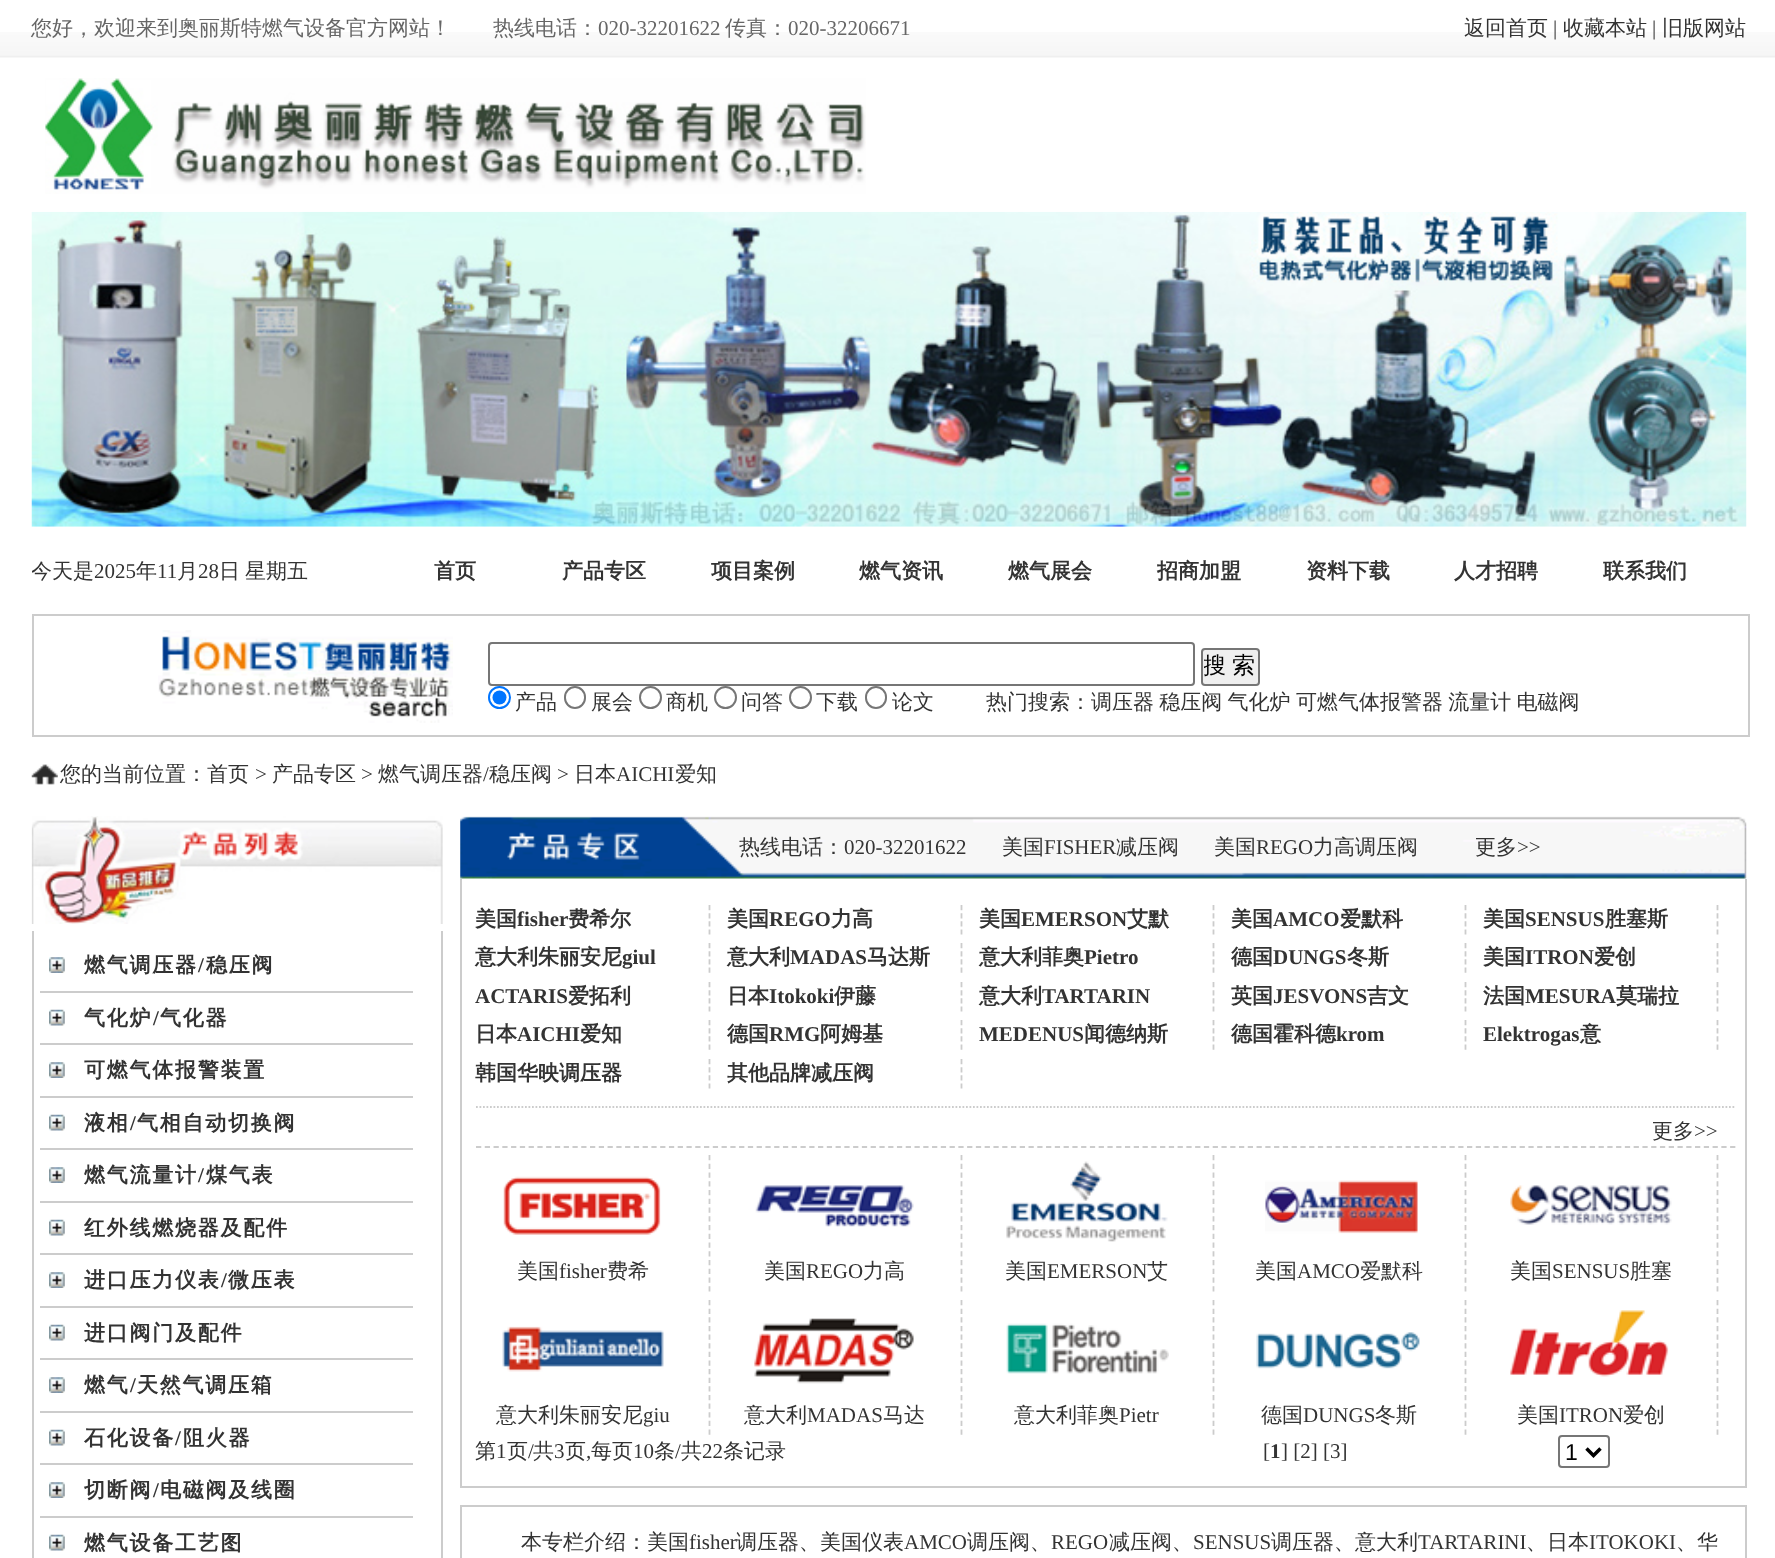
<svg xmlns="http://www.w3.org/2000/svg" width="1775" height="1558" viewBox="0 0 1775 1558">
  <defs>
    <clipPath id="clip1"><rect x="32" y="527" width="1715" height="87"/></clipPath>
    <clipPath id="clip2"><rect x="1204" y="651" width="53" height="32"/></clipPath>
  </defs>
  <rect width="100%" height="100%" fill="#ffffff"/>
  <image x="0" y="32" width="1775" height="26" href="img1.png"/>
  <text x="31" y="35" font-family="WenQuanYi Zen Hei" font-size="21" font-weight="500" fill="#666666">您好，欢迎来到奥丽斯特燃气设备官方网站！　　热线电话：</text>
  <text x="598" y="35" font-family="Liberation Serif" font-size="21" fill="#666666">020-32201622</text>
  <text x="725" y="35" font-family="WenQuanYi Zen Hei" font-size="21" font-weight="500" fill="#666666">传真：</text>
  <text x="788" y="35" font-family="Liberation Serif" font-size="21" fill="#666666">020-32206671</text>
  <text x="1464" y="35" font-family="WenQuanYi Zen Hei" font-size="21" font-weight="500" fill="#333333">返回首页</text>
  <text x="1553" y="35" font-family="Liberation Serif" font-size="21" fill="#333333">|</text>
  <text x="1563" y="35" font-family="WenQuanYi Zen Hei" font-size="21" font-weight="500" fill="#333333">收藏本站</text>
  <text x="1652" y="35" font-family="Liberation Serif" font-size="21" fill="#333333">|</text>
  <text x="1662" y="35" font-family="WenQuanYi Zen Hei" font-size="21" font-weight="500" fill="#333333">旧版网站</text>
  <image x="45" y="78" width="821" height="116" href="img2.png"/>
  <image x="31" y="211" width="1716" height="316" href="img3.png"/>
  <g clip-path="url(#clip1)">
    <text x="31" y="578" font-family="WenQuanYi Zen Hei" font-size="21" font-weight="500" fill="#333333">今天是</text>
  </g>
  <text x="94" y="578" font-family="Liberation Serif" font-size="21" fill="#333333">2025</text>
  <text x="136" y="578" font-family="WenQuanYi Zen Hei" font-size="21" font-weight="500" fill="#333333">年</text>
  <text x="157" y="578" font-family="Liberation Serif" font-size="21" fill="#333333">11</text>
  <text x="177" y="578" font-family="WenQuanYi Zen Hei" font-size="21" font-weight="500" fill="#333333">月</text>
  <text x="198" y="578" font-family="Liberation Serif" font-size="21" fill="#333333">28</text>
  <text x="219" y="578" font-family="WenQuanYi Zen Hei" font-size="21" font-weight="500" fill="#333333">日</text>
  <text x="245" y="578" font-family="WenQuanYi Zen Hei" font-size="21" font-weight="500" fill="#333333">星期五</text>
  <text x="434" y="578" font-family="WenQuanYi Zen Hei" font-size="21" font-weight="bold" fill="#333333">首页</text>
  <text x="562" y="578" font-family="WenQuanYi Zen Hei" font-size="21" font-weight="bold" fill="#333333">产品专区</text>
  <text x="711" y="578" font-family="WenQuanYi Zen Hei" font-size="21" font-weight="bold" fill="#333333">项目案例</text>
  <text x="859" y="578" font-family="WenQuanYi Zen Hei" font-size="21" font-weight="bold" fill="#333333">燃气资讯</text>
  <text x="1008" y="578" font-family="WenQuanYi Zen Hei" font-size="21" font-weight="bold" fill="#333333">燃气展会</text>
  <text x="1157" y="578" font-family="WenQuanYi Zen Hei" font-size="21" font-weight="bold" fill="#333333">招商加盟</text>
  <text x="1306" y="578" font-family="WenQuanYi Zen Hei" font-size="21" font-weight="bold" fill="#333333">资料下载</text>
  <text x="1454" y="578" font-family="WenQuanYi Zen Hei" font-size="21" font-weight="bold" fill="#333333">人才招聘</text>
  <text x="1603" y="578" font-family="WenQuanYi Zen Hei" font-size="21" font-weight="bold" fill="#333333">联系我们</text>
  <rect x="33" y="615" width="1716" height="121" fill="none" stroke="#cccccc" stroke-width="2"/>
  <image x="158" y="630" width="295" height="93" href="img4.png"/>
  <rect x="489" y="643" width="705" height="42" rx="3" fill="none" stroke="#767676" stroke-width="2"/>
  <rect x="1202" y="649" width="57" height="36" rx="3" fill="#efefef" stroke="#767676" stroke-width="2"/>
  <g clip-path="url(#clip2)">
    <text x="1203" y="673" word-spacing="-1" font-family="WenQuanYi Zen Hei" font-size="23" font-weight="500" fill="#000000">搜 索</text>
  </g>
  <circle cx="499.5" cy="697.5" r="10.5" fill="none" stroke="#0075ff" stroke-width="2"/>
  <circle cx="499.5" cy="697.5" r="7" fill="#0075ff"/>
  <text x="515" y="709" font-family="WenQuanYi Zen Hei" font-size="21" font-weight="500" fill="#333333">产品</text>
  <rect x="565" y="687" width="20" height="21" rx="10" fill="none" stroke="#767676" stroke-width="2"/>
  <text x="591" y="709" font-family="WenQuanYi Zen Hei" font-size="21" font-weight="500" fill="#333333">展会</text>
  <circle cx="650.5" cy="697.5" r="10.5" fill="none" stroke="#767676" stroke-width="2"/>
  <text x="666" y="709" font-family="WenQuanYi Zen Hei" font-size="21" font-weight="500" fill="#333333">商机</text>
  <circle cx="725.5" cy="697.5" r="10.5" fill="none" stroke="#767676" stroke-width="2"/>
  <text x="741" y="709" font-family="WenQuanYi Zen Hei" font-size="21" font-weight="500" fill="#333333">问答</text>
  <circle cx="800.5" cy="697.5" r="10.5" fill="none" stroke="#767676" stroke-width="2"/>
  <text x="816" y="709" font-family="WenQuanYi Zen Hei" font-size="21" font-weight="500" fill="#333333">下载</text>
  <rect x="866" y="687" width="20" height="21" rx="10" fill="none" stroke="#767676" stroke-width="2"/>
  <text x="892" y="709" font-family="WenQuanYi Zen Hei" font-size="21" font-weight="500" fill="#333333">论文</text>
  <text x="986" y="709" word-spacing="-1" font-family="WenQuanYi Zen Hei" font-size="21" font-weight="500" fill="#333333">热门搜索：调压器 稳压阀 气化炉 可燃气体报警器 流量计 电磁阀</text>
  <image x="31" y="764" width="27" height="21" href="img5.png"/>
  <text x="60" y="781" font-family="WenQuanYi Zen Hei" font-size="21" font-weight="500" fill="#333333">您的当前位置：首页</text>
  <text x="255" y="781" font-family="Liberation Serif" font-size="21" fill="#333333">&gt;</text>
  <text x="272" y="781" font-family="WenQuanYi Zen Hei" font-size="21" font-weight="500" fill="#333333">产品专区</text>
  <text x="361" y="781" font-family="Liberation Serif" font-size="21" fill="#333333">&gt;</text>
  <text x="378" y="781" font-family="WenQuanYi Zen Hei" font-size="21" font-weight="500" fill="#333333">燃气调压器</text>
  <text x="483" y="781" font-family="Liberation Serif" font-size="21" fill="#333333">/</text>
  <text x="489" y="781" font-family="WenQuanYi Zen Hei" font-size="21" font-weight="500" fill="#333333">稳压阀</text>
  <text x="557" y="781" font-family="Liberation Serif" font-size="21" fill="#333333">&gt;</text>
  <text x="574" y="781" font-family="WenQuanYi Zen Hei" font-size="21" font-weight="500" fill="#333333">日本</text>
  <text x="616" y="781" font-family="Liberation Serif" font-size="21" fill="#333333">AICHI</text>
  <text x="675" y="781" font-family="WenQuanYi Zen Hei" font-size="21" font-weight="500" fill="#333333">爱知</text>
  <image x="31" y="816" width="412" height="108" href="img6.png"/>
  <rect x="441" y="931" width="2" height="627" fill="#cccccc"/>
  <rect x="32" y="931" width="2" height="627" fill="#cccccc"/>
  <image x="49" y="957" width="16" height="16" href="img7.png"/>
  <rect x="40" y="991" width="373" height="2" fill="#cccccc"/>
  <text x="84" y="972" font-family="WenQuanYi Zen Hei" font-size="21" font-weight="bold" letter-spacing="1.75" fill="#333333">燃气调压器</text>
  <text x="198" y="972" font-family="Liberation Serif" font-size="21" font-weight="bold" letter-spacing="1.75" fill="#333333">/</text>
  <text x="206" y="972" font-family="WenQuanYi Zen Hei" font-size="21" font-weight="bold" letter-spacing="1.75" fill="#333333">稳压阀</text>
  <image x="49" y="1009" width="16" height="17" href="img8.png"/>
  <rect x="40" y="1043" width="373" height="2" fill="#cccccc"/>
  <text x="84" y="1025" font-family="WenQuanYi Zen Hei" font-size="21" font-weight="bold" letter-spacing="1.75" fill="#333333">气化炉</text>
  <text x="153" y="1025" font-family="Liberation Serif" font-size="21" font-weight="bold" letter-spacing="1.75" fill="#333333">/</text>
  <text x="160" y="1025" font-family="WenQuanYi Zen Hei" font-size="21" font-weight="bold" letter-spacing="1.75" fill="#333333">气化器</text>
  <image x="49" y="1062" width="16" height="16" href="img7.png"/>
  <rect x="40" y="1096" width="373" height="2" fill="#cccccc"/>
  <text x="84" y="1077" font-family="WenQuanYi Zen Hei" font-size="21" font-weight="bold" letter-spacing="1.75" fill="#333333">可燃气体报警装置</text>
  <image x="49" y="1114" width="16" height="17" href="img8.png"/>
  <rect x="40" y="1148" width="373" height="2" fill="#cccccc"/>
  <text x="84" y="1130" font-family="WenQuanYi Zen Hei" font-size="21" font-weight="bold" letter-spacing="1.75" fill="#333333">液相</text>
  <text x="130" y="1130" font-family="Liberation Serif" font-size="21" font-weight="bold" letter-spacing="1.75" fill="#333333">/</text>
  <text x="137" y="1130" font-family="WenQuanYi Zen Hei" font-size="21" font-weight="bold" letter-spacing="1.75" fill="#333333">气相自动切换阀</text>
  <image x="49" y="1167" width="16" height="16" href="img7.png"/>
  <rect x="40" y="1201" width="373" height="2" fill="#cccccc"/>
  <text x="84" y="1182" font-family="WenQuanYi Zen Hei" font-size="21" font-weight="bold" letter-spacing="1.75" fill="#333333">燃气流量计</text>
  <text x="198" y="1182" font-family="Liberation Serif" font-size="21" font-weight="bold" letter-spacing="1.75" fill="#333333">/</text>
  <text x="206" y="1182" font-family="WenQuanYi Zen Hei" font-size="21" font-weight="bold" letter-spacing="1.75" fill="#333333">煤气表</text>
  <image x="49" y="1219" width="16" height="17" href="img8.png"/>
  <rect x="40" y="1253" width="373" height="2" fill="#cccccc"/>
  <text x="84" y="1235" font-family="WenQuanYi Zen Hei" font-size="21" font-weight="bold" letter-spacing="1.75" fill="#333333">红外线燃烧器及配件</text>
  <image x="49" y="1272" width="16" height="16" href="img7.png"/>
  <rect x="40" y="1306" width="373" height="2" fill="#cccccc"/>
  <text x="84" y="1287" font-family="WenQuanYi Zen Hei" font-size="21" font-weight="bold" letter-spacing="1.75" fill="#333333">进口压力仪表</text>
  <text x="221" y="1287" font-family="Liberation Serif" font-size="21" font-weight="bold" letter-spacing="1.75" fill="#333333">/</text>
  <text x="228" y="1287" font-family="WenQuanYi Zen Hei" font-size="21" font-weight="bold" letter-spacing="1.75" fill="#333333">微压表</text>
  <image x="49" y="1324" width="16" height="17" href="img8.png"/>
  <rect x="40" y="1358" width="373" height="2" fill="#cccccc"/>
  <text x="84" y="1340" font-family="WenQuanYi Zen Hei" font-size="21" font-weight="bold" letter-spacing="1.75" fill="#333333">进口阀门及配件</text>
  <image x="49" y="1377" width="16" height="16" href="img7.png"/>
  <rect x="40" y="1411" width="373" height="2" fill="#cccccc"/>
  <text x="84" y="1392" font-family="WenQuanYi Zen Hei" font-size="21" font-weight="bold" letter-spacing="1.75" fill="#333333">燃气</text>
  <text x="130" y="1392" font-family="Liberation Serif" font-size="21" font-weight="bold" letter-spacing="1.75" fill="#333333">/</text>
  <text x="137" y="1392" font-family="WenQuanYi Zen Hei" font-size="21" font-weight="bold" letter-spacing="1.75" fill="#333333">天然气调压箱</text>
  <image x="49" y="1429" width="16" height="17" href="img8.png"/>
  <rect x="40" y="1463" width="373" height="2" fill="#cccccc"/>
  <text x="84" y="1445" font-family="WenQuanYi Zen Hei" font-size="21" font-weight="bold" letter-spacing="1.75" fill="#333333">石化设备</text>
  <text x="175" y="1445" font-family="Liberation Serif" font-size="21" font-weight="bold" letter-spacing="1.75" fill="#333333">/</text>
  <text x="183" y="1445" font-family="WenQuanYi Zen Hei" font-size="21" font-weight="bold" letter-spacing="1.75" fill="#333333">阻火器</text>
  <image x="49" y="1482" width="16" height="16" href="img7.png"/>
  <rect x="40" y="1516" width="373" height="2" fill="#cccccc"/>
  <text x="84" y="1497" font-family="WenQuanYi Zen Hei" font-size="21" font-weight="bold" letter-spacing="1.75" fill="#333333">切断阀</text>
  <text x="153" y="1497" font-family="Liberation Serif" font-size="21" font-weight="bold" letter-spacing="1.75" fill="#333333">/</text>
  <text x="160" y="1497" font-family="WenQuanYi Zen Hei" font-size="21" font-weight="bold" letter-spacing="1.75" fill="#333333">电磁阀及线圈</text>
  <image x="49" y="1534" width="16" height="17" href="img8.png"/>
  <text x="84" y="1550" font-family="WenQuanYi Zen Hei" font-size="21" font-weight="bold" letter-spacing="1.75" fill="#333333">燃气设备工艺图</text>
  <image x="460" y="816" width="1287" height="63" href="img9.png"/>
  <text x="739" y="854" font-family="WenQuanYi Zen Hei" font-size="21" font-weight="500" fill="#333333">热线电话：</text>
  <text x="844" y="854" font-family="Liberation Serif" font-size="21" fill="#333333">020-32201622</text>
  <text x="1002" y="854" font-family="WenQuanYi Zen Hei" font-size="21" font-weight="500" fill="#333333">美国</text>
  <text x="1044" y="854" font-family="Liberation Serif" font-size="21" fill="#333333">FISHER</text>
  <text x="1116" y="854" font-family="WenQuanYi Zen Hei" font-size="21" font-weight="500" fill="#333333">减压阀</text>
  <text x="1214" y="854" font-family="WenQuanYi Zen Hei" font-size="21" font-weight="500" fill="#333333">美国</text>
  <text x="1256" y="854" font-family="Liberation Serif" font-size="21" fill="#333333">REGO</text>
  <text x="1313" y="854" font-family="WenQuanYi Zen Hei" font-size="21" font-weight="500" fill="#333333">力高调压阀</text>
  <text x="1475" y="854" font-family="WenQuanYi Zen Hei" font-size="21" font-weight="500" fill="#333333">更多</text>
  <text x="1517" y="854" font-family="Liberation Serif" font-size="21" fill="#333333">&gt;&gt;</text>
  <rect x="1745" y="879" width="2" height="609" fill="#cccccc"/>
  <rect x="460" y="1486" width="1287" height="2" fill="#cccccc"/>
  <rect x="460" y="879" width="2" height="609" fill="#cccccc"/>
  <path d="M709.5 905V934.5" fill="none" stroke="#cccccc" stroke-width="1.8" stroke-dasharray="5.25 2.92"/>
  <text x="475" y="926" font-family="WenQuanYi Zen Hei" font-size="21" font-weight="bold" fill="#333333">美国</text>
  <text x="517" y="926" font-family="Liberation Serif" font-size="21" font-weight="bold" fill="#333333">fisher</text>
  <text x="568" y="926" font-family="WenQuanYi Zen Hei" font-size="21" font-weight="bold" fill="#333333">费希尔</text>
  <path d="M961.5 905V934.5" fill="none" stroke="#cccccc" stroke-width="1.8" stroke-dasharray="5.25 2.92"/>
  <text x="727" y="926" font-family="WenQuanYi Zen Hei" font-size="21" font-weight="bold" fill="#333333">美国</text>
  <text x="769" y="926" font-family="Liberation Serif" font-size="21" font-weight="bold" fill="#333333">REGO</text>
  <text x="831" y="926" font-family="WenQuanYi Zen Hei" font-size="21" font-weight="bold" fill="#333333">力高</text>
  <path d="M1213.5 905V934.5" fill="none" stroke="#cccccc" stroke-width="1.8" stroke-dasharray="5.25 2.92"/>
  <text x="979" y="926" font-family="WenQuanYi Zen Hei" font-size="21" font-weight="bold" fill="#333333">美国</text>
  <text x="1021" y="926" font-family="Liberation Serif" font-size="21" font-weight="bold" fill="#333333">EMERSON</text>
  <text x="1127" y="926" font-family="WenQuanYi Zen Hei" font-size="21" font-weight="bold" fill="#333333">艾默</text>
  <path d="M1465.5 905V934.5" fill="none" stroke="#cccccc" stroke-width="1.8" stroke-dasharray="5.25 2.92"/>
  <text x="1231" y="926" font-family="WenQuanYi Zen Hei" font-size="21" font-weight="bold" fill="#333333">美国</text>
  <text x="1273" y="926" font-family="Liberation Serif" font-size="21" font-weight="bold" fill="#333333">AMCO</text>
  <text x="1340" y="926" font-family="WenQuanYi Zen Hei" font-size="21" font-weight="bold" fill="#333333">爱默科</text>
  <path d="M1717.5 905V934.5" fill="none" stroke="#cccccc" stroke-width="1.8" stroke-dasharray="5.25 2.92"/>
  <text x="1483" y="926" font-family="WenQuanYi Zen Hei" font-size="21" font-weight="bold" fill="#333333">美国</text>
  <text x="1525" y="926" font-family="Liberation Serif" font-size="21" font-weight="bold" fill="#333333">SENSUS</text>
  <text x="1605" y="926" font-family="WenQuanYi Zen Hei" font-size="21" font-weight="bold" fill="#333333">胜塞斯</text>
  <path d="M709.5 943V973" fill="none" stroke="#cccccc" stroke-width="1.8" stroke-dasharray="5.25 2.92"/>
  <text x="475" y="964" font-family="WenQuanYi Zen Hei" font-size="21" font-weight="bold" fill="#333333">意大利朱丽安尼</text>
  <text x="622" y="964" font-family="Liberation Serif" font-size="21" font-weight="bold" fill="#333333">giul</text>
  <path d="M961.5 943V973" fill="none" stroke="#cccccc" stroke-width="1.8" stroke-dasharray="5.25 2.92"/>
  <text x="727" y="964" font-family="WenQuanYi Zen Hei" font-size="21" font-weight="bold" fill="#333333">意大利</text>
  <text x="790" y="964" font-family="Liberation Serif" font-size="21" font-weight="bold" fill="#333333">MADAS</text>
  <text x="867" y="964" font-family="WenQuanYi Zen Hei" font-size="21" font-weight="bold" fill="#333333">马达斯</text>
  <path d="M1213.5 943V973" fill="none" stroke="#cccccc" stroke-width="1.8" stroke-dasharray="5.25 2.92"/>
  <text x="979" y="964" font-family="WenQuanYi Zen Hei" font-size="21" font-weight="bold" fill="#333333">意大利菲奥</text>
  <text x="1084" y="964" font-family="Liberation Serif" font-size="21" font-weight="bold" fill="#333333">Pietro</text>
  <path d="M1465.5 943V973" fill="none" stroke="#cccccc" stroke-width="1.8" stroke-dasharray="5.25 2.92"/>
  <text x="1231" y="964" font-family="WenQuanYi Zen Hei" font-size="21" font-weight="bold" fill="#333333">德国</text>
  <text x="1273" y="964" font-family="Liberation Serif" font-size="21" font-weight="bold" fill="#333333">DUNGS</text>
  <text x="1347" y="964" font-family="WenQuanYi Zen Hei" font-size="21" font-weight="bold" fill="#333333">冬斯</text>
  <path d="M1717.5 943V973" fill="none" stroke="#cccccc" stroke-width="1.8" stroke-dasharray="5.25 2.92"/>
  <text x="1483" y="964" font-family="WenQuanYi Zen Hei" font-size="21" font-weight="bold" fill="#333333">美国</text>
  <text x="1525" y="964" font-family="Liberation Serif" font-size="21" font-weight="bold" fill="#333333">ITRON</text>
  <text x="1594" y="964" font-family="WenQuanYi Zen Hei" font-size="21" font-weight="bold" fill="#333333">爱创</text>
  <path d="M709.5 982V1011.5" fill="none" stroke="#cccccc" stroke-width="1.8" stroke-dasharray="5.25 2.92"/>
  <text x="475" y="1003" font-family="Liberation Serif" font-size="21" font-weight="bold" fill="#333333">ACTARIS</text>
  <text x="568" y="1003" font-family="WenQuanYi Zen Hei" font-size="21" font-weight="bold" fill="#333333">爱拓利</text>
  <path d="M961.5 982V1011.5" fill="none" stroke="#cccccc" stroke-width="1.8" stroke-dasharray="5.25 2.92"/>
  <text x="727" y="1003" font-family="WenQuanYi Zen Hei" font-size="21" font-weight="bold" fill="#333333">日本</text>
  <text x="769" y="1003" font-family="Liberation Serif" font-size="21" font-weight="bold" fill="#333333">Itokoki</text>
  <text x="834" y="1003" font-family="WenQuanYi Zen Hei" font-size="21" font-weight="bold" fill="#333333">伊藤</text>
  <path d="M1213.5 982V1011.5" fill="none" stroke="#cccccc" stroke-width="1.8" stroke-dasharray="5.25 2.92"/>
  <text x="979" y="1003" font-family="WenQuanYi Zen Hei" font-size="21" font-weight="bold" fill="#333333">意大利</text>
  <text x="1042" y="1003" font-family="Liberation Serif" font-size="21" font-weight="bold" fill="#333333">TARTARIN</text>
  <path d="M1465.5 982V1011.5" fill="none" stroke="#cccccc" stroke-width="1.8" stroke-dasharray="5.25 2.92"/>
  <text x="1231" y="1003" font-family="WenQuanYi Zen Hei" font-size="21" font-weight="bold" fill="#333333">英国</text>
  <text x="1273" y="1003" font-family="Liberation Serif" font-size="21" font-weight="bold" fill="#333333">JESVONS</text>
  <text x="1367" y="1003" font-family="WenQuanYi Zen Hei" font-size="21" font-weight="bold" fill="#333333">吉文</text>
  <path d="M1717.5 982V1011.5" fill="none" stroke="#cccccc" stroke-width="1.8" stroke-dasharray="5.25 2.92"/>
  <text x="1483" y="1003" font-family="WenQuanYi Zen Hei" font-size="21" font-weight="bold" fill="#333333">法国</text>
  <text x="1525" y="1003" font-family="Liberation Serif" font-size="21" font-weight="bold" fill="#333333">MESURA</text>
  <text x="1616" y="1003" font-family="WenQuanYi Zen Hei" font-size="21" font-weight="bold" fill="#333333">莫瑞拉</text>
  <path d="M709.5 1020V1050" fill="none" stroke="#cccccc" stroke-width="1.8" stroke-dasharray="5.25 2.92"/>
  <text x="475" y="1041" font-family="WenQuanYi Zen Hei" font-size="21" font-weight="bold" fill="#333333">日本</text>
  <text x="517" y="1041" font-family="Liberation Serif" font-size="21" font-weight="bold" fill="#333333">AICHI</text>
  <text x="580" y="1041" font-family="WenQuanYi Zen Hei" font-size="21" font-weight="bold" fill="#333333">爱知</text>
  <path d="M961.5 1020V1050" fill="none" stroke="#cccccc" stroke-width="1.8" stroke-dasharray="5.25 2.92"/>
  <text x="727" y="1041" font-family="WenQuanYi Zen Hei" font-size="21" font-weight="bold" fill="#333333">德国</text>
  <text x="769" y="1041" font-family="Liberation Serif" font-size="21" font-weight="bold" fill="#333333">RMG</text>
  <text x="820" y="1041" font-family="WenQuanYi Zen Hei" font-size="21" font-weight="bold" fill="#333333">阿姆基</text>
  <path d="M1213.5 1020V1050" fill="none" stroke="#cccccc" stroke-width="1.8" stroke-dasharray="5.25 2.92"/>
  <text x="979" y="1041" font-family="Liberation Serif" font-size="21" font-weight="bold" fill="#333333">MEDENUS</text>
  <text x="1084" y="1041" font-family="WenQuanYi Zen Hei" font-size="21" font-weight="bold" fill="#333333">闻德纳斯</text>
  <path d="M1465.5 1020V1050" fill="none" stroke="#cccccc" stroke-width="1.8" stroke-dasharray="5.25 2.92"/>
  <text x="1231" y="1041" font-family="WenQuanYi Zen Hei" font-size="21" font-weight="bold" fill="#333333">德国霍科德</text>
  <text x="1336" y="1041" font-family="Liberation Serif" font-size="21" font-weight="bold" fill="#333333">krom</text>
  <path d="M1717.5 1020V1050" fill="none" stroke="#cccccc" stroke-width="1.8" stroke-dasharray="5.25 2.92"/>
  <text x="1483" y="1041" font-family="Liberation Serif" font-size="21" font-weight="bold" fill="#333333">Elektrogas</text>
  <text x="1580" y="1041" font-family="WenQuanYi Zen Hei" font-size="21" font-weight="bold" fill="#333333">意</text>
  <path d="M709.5 1059V1088.5" fill="none" stroke="#cccccc" stroke-width="1.8" stroke-dasharray="5.25 2.92"/>
  <text x="475" y="1080" font-family="WenQuanYi Zen Hei" font-size="21" font-weight="bold" fill="#333333">韩国华映调压器</text>
  <path d="M961.5 1059V1088.5" fill="none" stroke="#cccccc" stroke-width="1.8" stroke-dasharray="5.25 2.92"/>
  <text x="727" y="1080" font-family="WenQuanYi Zen Hei" font-size="21" font-weight="bold" fill="#333333">其他品牌减压阀</text>
  <path d="M476 1107H1736" fill="none" stroke="#cccccc" stroke-width="1.8" stroke-dasharray="1.75 1.75"/>
  <text x="1652" y="1138" font-family="WenQuanYi Zen Hei" font-size="21" font-weight="500" fill="#333333">更多</text>
  <text x="1694" y="1138" font-family="Liberation Serif" font-size="21" fill="#333333">&gt;&gt;</text>
  <path d="M709.5 1155V1291.5" fill="none" stroke="#cccccc" stroke-width="1.8" stroke-dasharray="5.25 3.5"/>
  <image x="503" y="1176" width="158" height="59" href="img10.png"/>
  <text x="517" y="1278" font-family="WenQuanYi Zen Hei" font-size="21" font-weight="500" fill="#333333">美国</text>
  <text x="559" y="1278" font-family="Liberation Serif" font-size="21" fill="#333333">fisher</text>
  <text x="607" y="1278" font-family="WenQuanYi Zen Hei" font-size="21" font-weight="500" fill="#333333">费希</text>
  <path d="M961.5 1155V1291.5" fill="none" stroke="#cccccc" stroke-width="1.8" stroke-dasharray="5.25 3.5"/>
  <image x="755" y="1185" width="159" height="42" href="img11.png"/>
  <text x="764" y="1278" font-family="WenQuanYi Zen Hei" font-size="21" font-weight="500" fill="#333333">美国</text>
  <text x="806" y="1278" font-family="Liberation Serif" font-size="21" fill="#333333">REGO</text>
  <text x="863" y="1278" font-family="WenQuanYi Zen Hei" font-size="21" font-weight="500" fill="#333333">力高</text>
  <path d="M1213.5 1155V1291.5" fill="none" stroke="#cccccc" stroke-width="1.8" stroke-dasharray="5.25 3.5"/>
  <image x="1006" y="1161" width="162" height="81" href="img12.png"/>
  <text x="1005" y="1278" font-family="WenQuanYi Zen Hei" font-size="21" font-weight="500" fill="#333333">美国</text>
  <text x="1047" y="1278" font-family="Liberation Serif" font-size="21" fill="#333333">EMERSON</text>
  <text x="1147" y="1278" font-family="WenQuanYi Zen Hei" font-size="21" font-weight="500" fill="#333333">艾</text>
  <path d="M1465.5 1155V1291.5" fill="none" stroke="#cccccc" stroke-width="1.8" stroke-dasharray="5.25 3.5"/>
  <image x="1265" y="1180" width="153" height="54" href="img13.png"/>
  <text x="1255" y="1278" font-family="WenQuanYi Zen Hei" font-size="21" font-weight="500" fill="#333333">美国</text>
  <text x="1297" y="1278" font-family="Liberation Serif" font-size="21" fill="#333333">AMCO</text>
  <text x="1360" y="1278" font-family="WenQuanYi Zen Hei" font-size="21" font-weight="500" fill="#333333">爱默科</text>
  <path d="M1717.5 1155V1291.5" fill="none" stroke="#cccccc" stroke-width="1.8" stroke-dasharray="5.25 3.5"/>
  <image x="1510" y="1185" width="162" height="40" href="img14.png"/>
  <text x="1510" y="1278" font-family="WenQuanYi Zen Hei" font-size="21" font-weight="500" fill="#333333">美国</text>
  <text x="1552" y="1278" font-family="Liberation Serif" font-size="21" fill="#333333">SENSUS</text>
  <text x="1630" y="1278" font-family="WenQuanYi Zen Hei" font-size="21" font-weight="500" fill="#333333">胜塞</text>
  <path d="M709.5 1300V1435" fill="none" stroke="#cccccc" stroke-width="1.8" stroke-dasharray="5.25 3.38"/>
  <image x="502" y="1326" width="162" height="46" href="img15.png"/>
  <text x="496" y="1422" font-family="WenQuanYi Zen Hei" font-size="21" font-weight="500" fill="#333333">意大利朱丽安尼</text>
  <text x="643" y="1422" font-family="Liberation Serif" font-size="21" fill="#333333">giu</text>
  <path d="M961.5 1300V1435" fill="none" stroke="#cccccc" stroke-width="1.8" stroke-dasharray="5.25 3.38"/>
  <image x="754" y="1318" width="160" height="66" href="img16.png"/>
  <text x="744" y="1422" font-family="WenQuanYi Zen Hei" font-size="21" font-weight="500" fill="#333333">意大利</text>
  <text x="807" y="1422" font-family="Liberation Serif" font-size="21" fill="#333333">MADAS</text>
  <text x="883" y="1422" font-family="WenQuanYi Zen Hei" font-size="21" font-weight="500" fill="#333333">马达</text>
  <path d="M1213.5 1300V1435" fill="none" stroke="#cccccc" stroke-width="1.8" stroke-dasharray="5.25 3.38"/>
  <image x="1006" y="1323" width="163" height="51" href="img17.png"/>
  <text x="1014" y="1422" font-family="WenQuanYi Zen Hei" font-size="21" font-weight="500" fill="#333333">意大利菲奥</text>
  <text x="1119" y="1422" font-family="Liberation Serif" font-size="21" fill="#333333">Pietr</text>
  <path d="M1465.5 1300V1435" fill="none" stroke="#cccccc" stroke-width="1.8" stroke-dasharray="5.25 3.38"/>
  <image x="1256" y="1332" width="164" height="37" href="img18.png"/>
  <text x="1261" y="1422" font-family="WenQuanYi Zen Hei" font-size="21" font-weight="500" fill="#333333">德国</text>
  <text x="1303" y="1422" font-family="Liberation Serif" font-size="21" fill="#333333">DUNGS</text>
  <text x="1375" y="1422" font-family="WenQuanYi Zen Hei" font-size="21" font-weight="500" fill="#333333">冬斯</text>
  <path d="M1717.5 1300V1435" fill="none" stroke="#cccccc" stroke-width="1.8" stroke-dasharray="5.25 3.38"/>
  <image x="1510" y="1310" width="159" height="67" href="img19.png"/>
  <text x="1517" y="1422" font-family="WenQuanYi Zen Hei" font-size="21" font-weight="500" fill="#333333">美国</text>
  <text x="1559" y="1422" font-family="Liberation Serif" font-size="21" fill="#333333">ITRON</text>
  <text x="1623" y="1422" font-family="WenQuanYi Zen Hei" font-size="21" font-weight="500" fill="#333333">爱创</text>
  <path d="M476 1147H1736" fill="none" stroke="#cccccc" stroke-width="1.8" stroke-dasharray="5.25 3.52"/>
  <text x="475" y="1458" font-family="WenQuanYi Zen Hei" font-size="21" font-weight="500" fill="#333333">第</text>
  <text x="496" y="1458" font-family="Liberation Serif" font-size="21" fill="#333333">1</text>
  <text x="507" y="1458" font-family="WenQuanYi Zen Hei" font-size="21" font-weight="500" fill="#333333">页</text>
  <text x="528" y="1458" font-family="Liberation Serif" font-size="21" fill="#333333">/</text>
  <text x="533" y="1458" font-family="WenQuanYi Zen Hei" font-size="21" font-weight="500" fill="#333333">共</text>
  <text x="554" y="1458" font-family="Liberation Serif" font-size="21" fill="#333333">3</text>
  <text x="565" y="1458" font-family="WenQuanYi Zen Hei" font-size="21" font-weight="500" fill="#333333">页</text>
  <text x="586" y="1458" font-family="Liberation Serif" font-size="21" fill="#333333">,</text>
  <text x="591" y="1458" font-family="WenQuanYi Zen Hei" font-size="21" font-weight="500" fill="#333333">每页</text>
  <text x="633" y="1458" font-family="Liberation Serif" font-size="21" fill="#333333">10</text>
  <text x="654" y="1458" font-family="WenQuanYi Zen Hei" font-size="21" font-weight="500" fill="#333333">条</text>
  <text x="675" y="1458" font-family="Liberation Serif" font-size="21" fill="#333333">/</text>
  <text x="681" y="1458" font-family="WenQuanYi Zen Hei" font-size="21" font-weight="500" fill="#333333">共</text>
  <text x="702" y="1458" font-family="Liberation Serif" font-size="21" fill="#333333">22</text>
  <text x="723" y="1458" font-family="WenQuanYi Zen Hei" font-size="21" font-weight="500" fill="#333333">条记录</text>
  <text x="1263" y="1458" font-family="Liberation Serif" font-size="21" fill="#333333">[</text>
  <text x="1270" y="1458" font-family="Liberation Serif" font-size="21" font-weight="bold" fill="#333333">1</text>
  <text x="1281" y="1458" font-family="Liberation Serif" font-size="21" fill="#333333">] [2] [3]</text>
  <rect x="1559" y="1436" width="50" height="31" rx="3" fill="none" stroke="#767676" stroke-width="2"/>
  <path d="M1586.5 1448.5L1593.5 1455.5L1600.5 1448.5" fill="none" stroke="#000000" stroke-width="3.5"/>
  <text x="1565" y="1460" font-family="Liberation Sans" font-size="23" fill="#000000">1</text>
  <rect x="461" y="1506" width="1285" height="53" fill="none" stroke="#cccccc" stroke-width="2"/>
  <text x="521" y="1549" font-family="WenQuanYi Zen Hei" font-size="21" font-weight="500" fill="#333333">本专栏介绍：美国</text>
  <text x="689" y="1549" font-family="Liberation Serif" font-size="21" fill="#333333">fisher</text>
  <text x="736" y="1549" font-family="WenQuanYi Zen Hei" font-size="21" font-weight="500" fill="#333333">调压器、美国仪表</text>
  <text x="904" y="1549" font-family="Liberation Serif" font-size="21" fill="#333333">AMCO</text>
  <text x="967" y="1549" font-family="WenQuanYi Zen Hei" font-size="21" font-weight="500" fill="#333333">调压阀、</text>
  <text x="1051" y="1549" font-family="Liberation Serif" font-size="21" fill="#333333">REGO</text>
  <text x="1109" y="1549" font-family="WenQuanYi Zen Hei" font-size="21" font-weight="500" fill="#333333">减压阀、</text>
  <text x="1193" y="1549" font-family="Liberation Serif" font-size="21" fill="#333333">SENSUS</text>
  <text x="1271" y="1549" font-family="WenQuanYi Zen Hei" font-size="21" font-weight="500" fill="#333333">调压器、意大利</text>
  <text x="1418" y="1549" font-family="Liberation Serif" font-size="21" fill="#333333">TARTARINI</text>
  <text x="1526" y="1549" font-family="WenQuanYi Zen Hei" font-size="21" font-weight="500" fill="#333333">、日本</text>
  <text x="1589" y="1549" font-family="Liberation Serif" font-size="21" fill="#333333">ITOKOKI</text>
  <text x="1676" y="1549" font-family="WenQuanYi Zen Hei" font-size="21" font-weight="500" fill="#333333">、华</text>
</svg>
